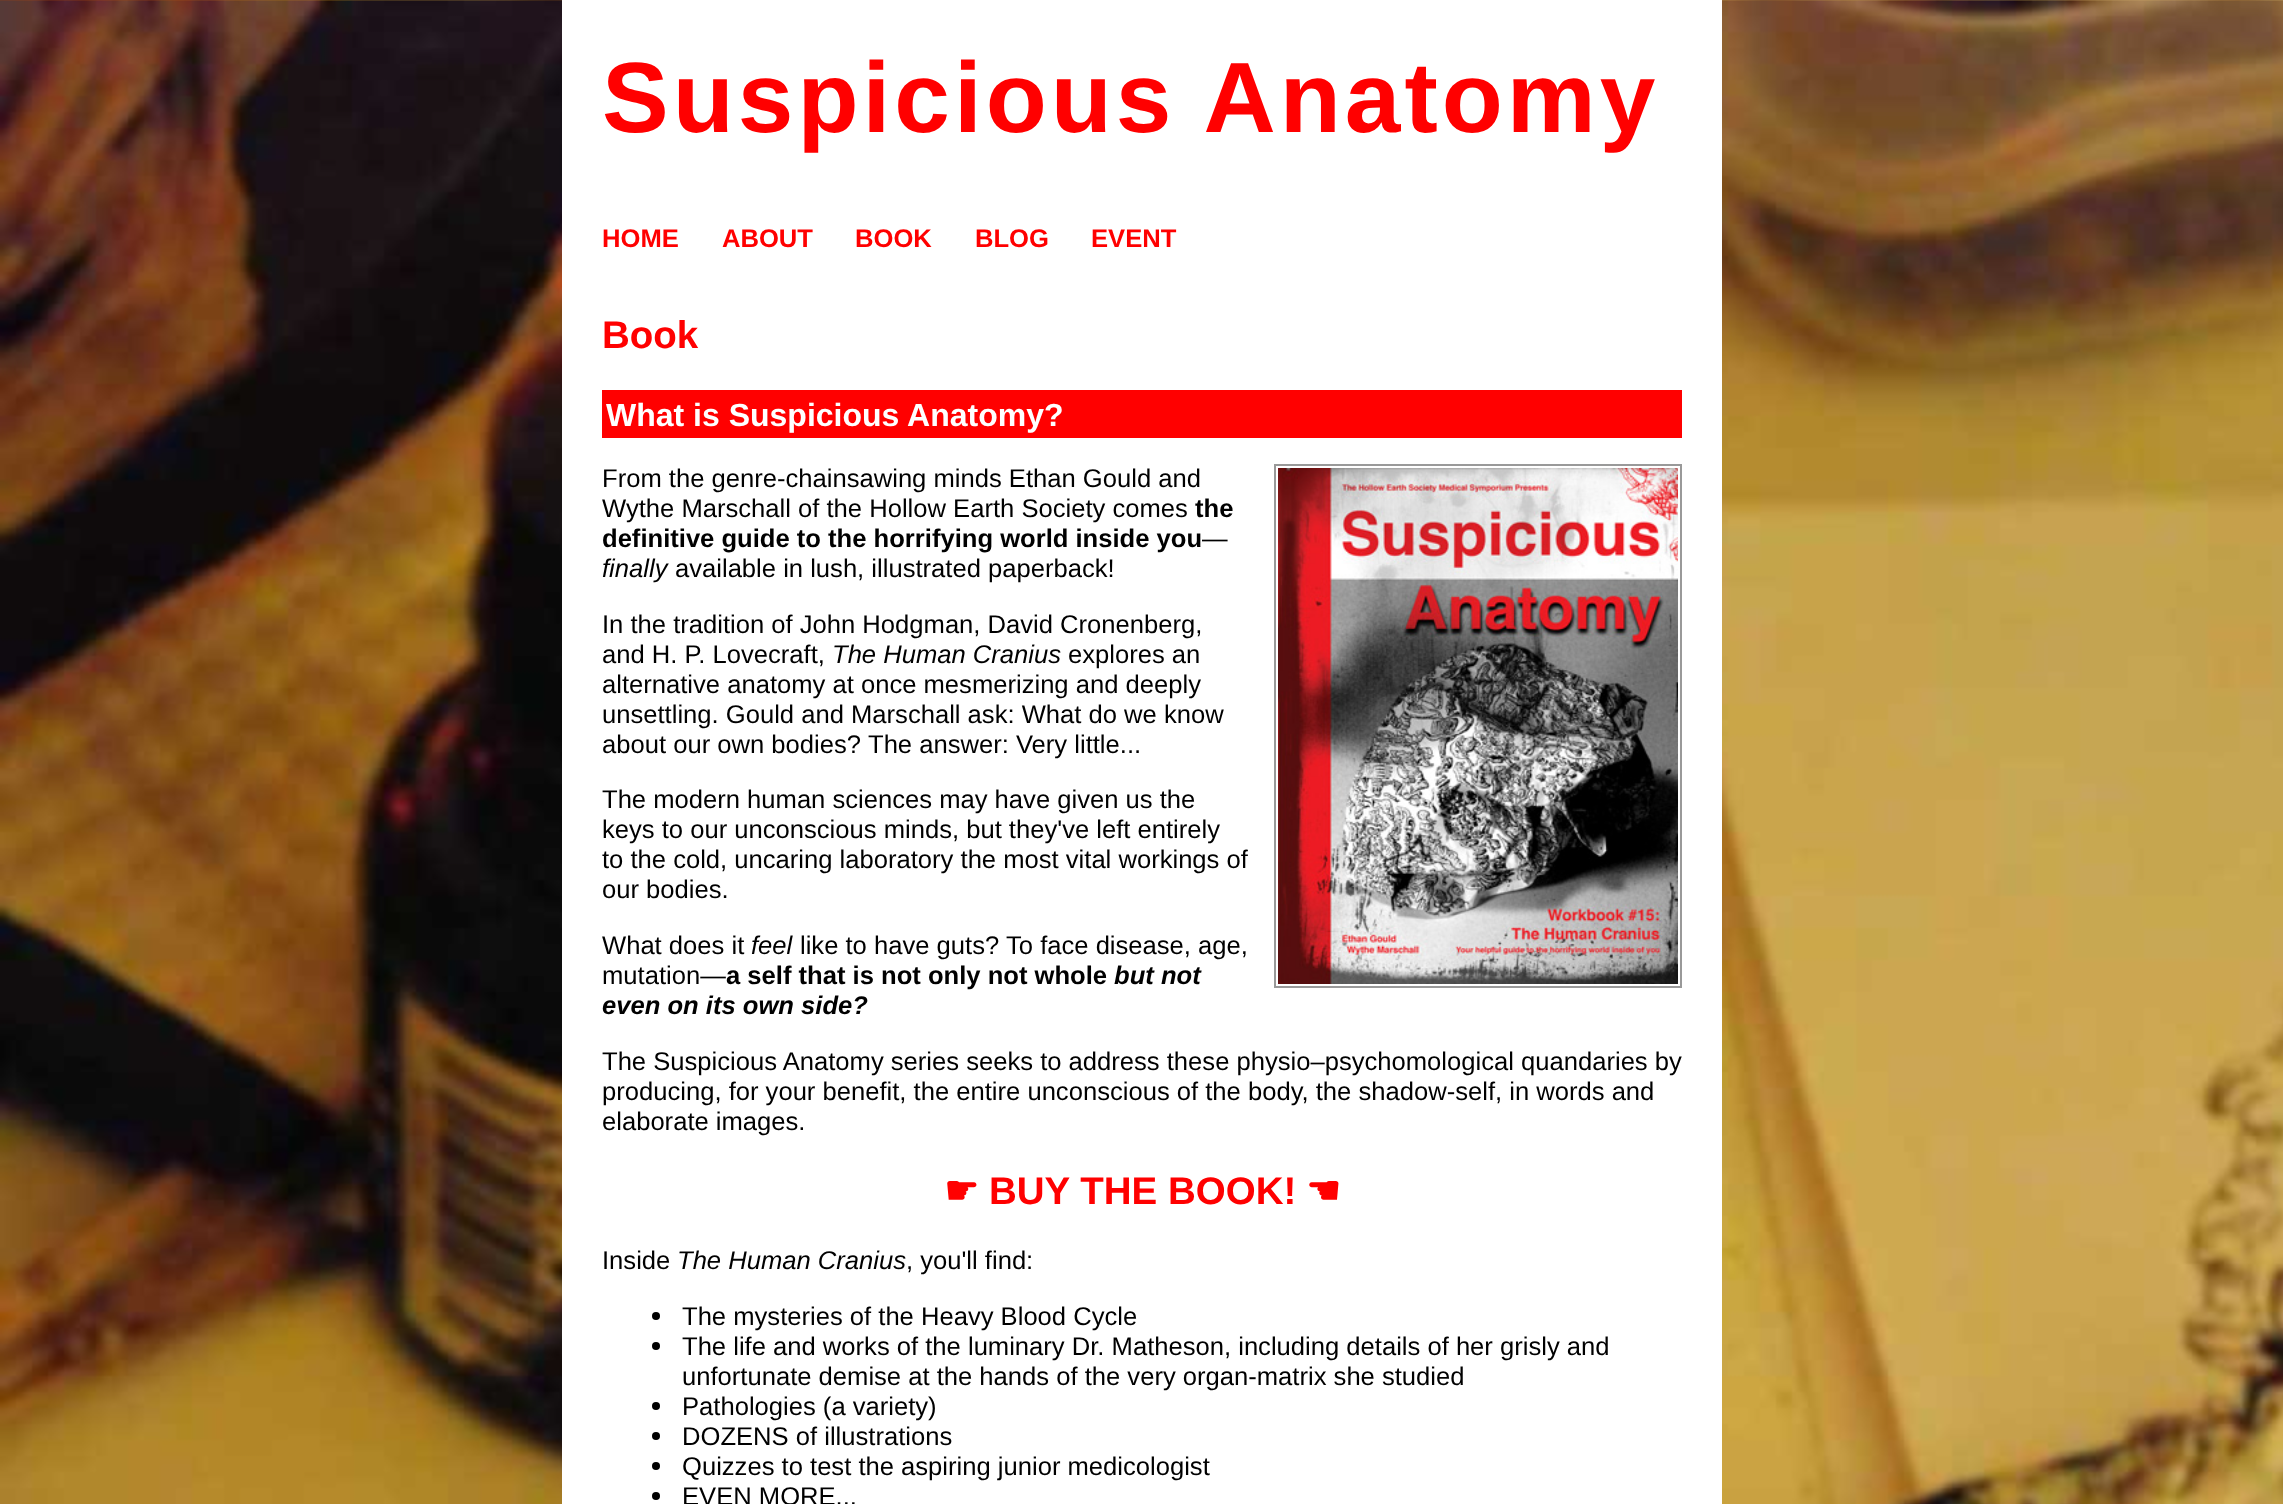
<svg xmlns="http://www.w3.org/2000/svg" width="2283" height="1504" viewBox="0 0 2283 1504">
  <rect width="100%" height="100%" fill="#ffffff"/>
  <image x="0" y="0" width="2283" height="1504" href="img1.png"/>
  <rect x="562" y="0" width="1160" height="1504" fill="#ffffff"/>
  <text x="602" y="132" font-family="Liberation Sans" font-size="100" font-weight="bold" letter-spacing="4" fill="#ff0000">Suspicious Anatomy</text>
  <text x="602" y="247" font-family="Liberation Sans" font-size="25.6" font-weight="bold" fill="#ff0000">HOME</text>
  <text x="722" y="247" font-family="Liberation Sans" font-size="25.6" font-weight="bold" fill="#ff0000">ABOUT</text>
  <text x="855" y="247" font-family="Liberation Sans" font-size="25.6" font-weight="bold" fill="#ff0000">BOOK</text>
  <text x="975" y="247" font-family="Liberation Sans" font-size="25.6" font-weight="bold" fill="#ff0000">BLOG</text>
  <text x="1091" y="247" font-family="Liberation Sans" font-size="25.6" font-weight="bold" fill="#ff0000">EVENT</text>
  <text x="602" y="348" font-family="Liberation Sans" font-size="38.5" font-weight="bold" fill="#ff0000">Book</text>
  <rect x="602" y="390" width="1080" height="48" fill="#ff0000"/>
  <text x="606" y="426" font-family="Liberation Sans" font-size="32" font-weight="bold" fill="#ffffff">What is Suspicious Anatomy?</text>
  <text x="602" y="487" font-family="Liberation Sans" font-size="25.6" fill="#000000">From the genre-chainsawing minds Ethan Gould and</text>
  <text x="602" y="517" font-family="Liberation Sans" font-size="25.6" fill="#000000">Wythe Marschall of the Hollow Earth Society comes</text>
  <text x="1195" y="517" font-family="Liberation Sans" font-size="25.6" font-weight="bold" fill="#000000">the</text>
  <text x="602" y="547" font-family="Liberation Sans" font-size="25.6" font-weight="bold" fill="#000000">definitive guide to the horrifying world inside you</text>
  <text x="1202" y="547" font-family="Liberation Sans" font-size="25.6" fill="#000000">—</text>
  <text x="602" y="577" font-family="Liberation Sans" font-size="25.6" font-style="italic" fill="#000000">finally</text>
  <text x="675" y="577" font-family="Liberation Sans" font-size="25.6" fill="#000000">available in lush, illustrated paperback!</text>
  <rect x="1275" y="465" width="406" height="522" fill="none" stroke="#999999" stroke-width="2"/>
  <image x="1278" y="468" width="400" height="516" href="img2.png"/>
  <text x="602" y="633" font-family="Liberation Sans" font-size="25.6" fill="#000000">In the tradition of John Hodgman, David Cronenberg,</text>
  <text x="602" y="663" font-family="Liberation Sans" font-size="25.6" fill="#000000">and H. P. Lovecraft,</text>
  <text x="832" y="663" font-family="Liberation Sans" font-size="25.6" font-style="italic" fill="#000000">The Human Cranius</text>
  <text x="1068" y="663" font-family="Liberation Sans" font-size="25.6" fill="#000000">explores an</text>
  <text x="602" y="693" font-family="Liberation Sans" font-size="25.6" fill="#000000">alternative anatomy at once mesmerizing and deeply</text>
  <text x="602" y="723" font-family="Liberation Sans" font-size="25.6" fill="#000000">unsettling. Gould and Marschall ask: What do we know</text>
  <text x="602" y="753" font-family="Liberation Sans" font-size="25.6" fill="#000000">about our own bodies?</text>
  <text x="868" y="753" font-family="Liberation Sans" font-size="25.6" fill="#000000">The answer: Very little...</text>
  <text x="602" y="808" font-family="Liberation Sans" font-size="25.6" fill="#000000">The modern human sciences may have given us the</text>
  <text x="602" y="838" font-family="Liberation Sans" font-size="25.6" fill="#000000">keys to our unconscious minds, but they've left entirely</text>
  <text x="602" y="868" font-family="Liberation Sans" font-size="25.6" fill="#000000">to the cold, uncaring laboratory the most vital workings of</text>
  <text x="602" y="898" font-family="Liberation Sans" font-size="25.6" fill="#000000">our bodies.</text>
  <text x="602" y="954" font-family="Liberation Sans" font-size="25.6" fill="#000000">What does it</text>
  <text x="751" y="954" font-family="Liberation Sans" font-size="25.6" font-style="italic" fill="#000000">feel</text>
  <text x="800" y="954" font-family="Liberation Sans" font-size="25.6" fill="#000000">like to have guts?</text>
  <text x="1006" y="954" font-family="Liberation Sans" font-size="25.6" fill="#000000">To face disease, age,</text>
  <text x="602" y="984" font-family="Liberation Sans" font-size="25.6" fill="#000000">mutation—</text>
  <text x="726" y="984" font-family="Liberation Sans" font-size="25.6" font-weight="bold" fill="#000000">a self that is not only not whole</text>
  <text x="1114" y="984" font-family="Liberation Sans" font-size="25.6" font-weight="bold" font-style="italic" fill="#000000">but not</text>
  <text x="602" y="1014" font-family="Liberation Sans" font-size="25.6" font-weight="bold" font-style="italic" fill="#000000">even on its own side?</text>
  <text x="602" y="1070" font-family="Liberation Sans" font-size="25.6" fill="#000000">The Suspicious Anatomy series seeks to address these physio–psychomological quandaries by</text>
  <text x="602" y="1100" font-family="Liberation Sans" font-size="25.6" fill="#000000">producing, for your benefit, the entire unconscious of the body, the shadow-self, in words and</text>
  <text x="602" y="1130" font-family="Liberation Sans" font-size="25.6" fill="#000000">elaborate images.</text>
  <text x="944" y="1204" font-family="DejaVu Sans" font-size="38.5" font-weight="bold" fill="#ff0000">☛</text>
  <text x="989" y="1204" font-family="Liberation Sans" font-size="38.5" font-weight="bold" fill="#ff0000">BUY THE BOOK!</text>
  <text x="1306" y="1204" font-family="DejaVu Sans" font-size="38.5" font-weight="bold" fill="#ff0000">☚</text>
  <text x="602" y="1269" font-family="Liberation Sans" font-size="25.6" fill="#000000">Inside</text>
  <text x="677" y="1269" font-family="Liberation Sans" font-size="25.6" font-style="italic" fill="#000000">The Human Cranius</text>
  <text x="906" y="1269" font-family="Liberation Sans" font-size="25.6" fill="#000000">, you'll find:</text>
  <circle cx="656" cy="1316" r="4" fill="#000000"/>
  <text x="682" y="1325" font-family="Liberation Sans" font-size="25.6" fill="#000000">The mysteries of the Heavy Blood Cycle</text>
  <circle cx="656" cy="1346" r="4" fill="#000000"/>
  <text x="682" y="1355" font-family="Liberation Sans" font-size="25.6" fill="#000000">The life and works of the luminary Dr. Matheson, including details of her grisly and</text>
  <text x="682" y="1385" font-family="Liberation Sans" font-size="25.6" fill="#000000">unfortunate demise at the hands of the very organ-matrix she studied</text>
  <circle cx="656" cy="1406" r="4" fill="#000000"/>
  <text x="682" y="1415" font-family="Liberation Sans" font-size="25.6" fill="#000000">Pathologies (a variety)</text>
  <circle cx="656" cy="1436" r="4" fill="#000000"/>
  <text x="682" y="1445" font-family="Liberation Sans" font-size="25.6" fill="#000000">DOZENS of illustrations</text>
  <circle cx="656" cy="1466" r="4" fill="#000000"/>
  <text x="682" y="1475" font-family="Liberation Sans" font-size="25.6" fill="#000000">Quizzes to test the aspiring junior medicologist</text>
  <circle cx="656" cy="1496" r="4" fill="#000000"/>
  <text x="682" y="1505" font-family="Liberation Sans" font-size="25.6" fill="#000000">EVEN MORE...</text>
</svg>
